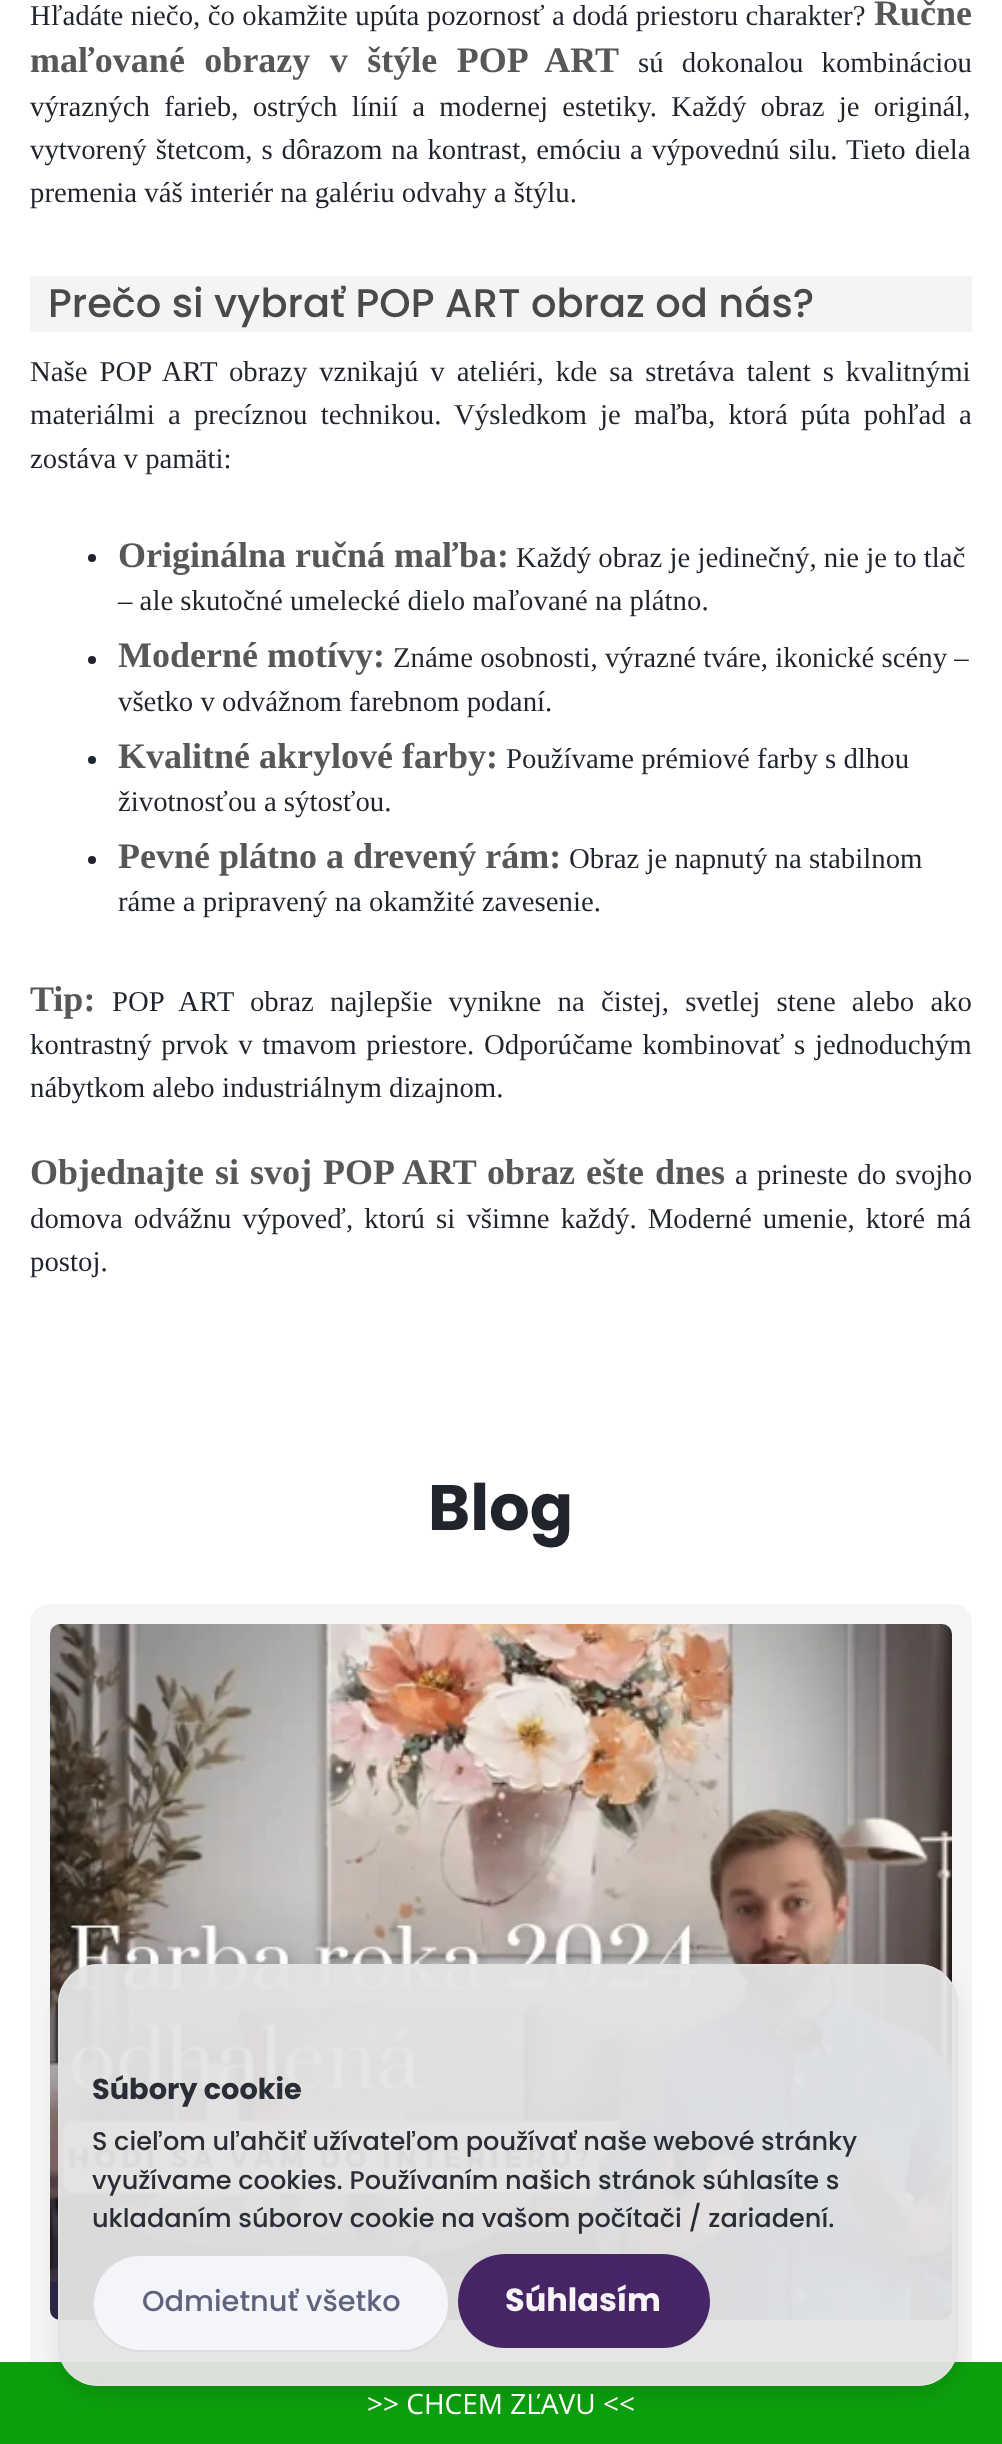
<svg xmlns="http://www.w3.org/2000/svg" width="1002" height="2444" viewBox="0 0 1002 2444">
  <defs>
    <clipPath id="clip1"><path d="M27 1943H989V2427H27ZM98 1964H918C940 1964 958 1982 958 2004V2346C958 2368 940 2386 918 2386H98C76 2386 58 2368 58 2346V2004C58 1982 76 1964 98 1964Z" clip-rule="evenodd"/></clipPath>
    <filter id="blur1" x="-50%" y="-200%" width="200%" height="500%"><feGaussianBlur stdDeviation="10"/></filter>
  </defs>
  <rect width="100%" height="100%" fill="#ffffff"/>
  <text x="30" y="25" word-spacing="0.25" font-family="Liberation Serif" font-size="28.8" fill="#1f242d">Hľadáte niečo, čo okamžite upúta pozornosť a dodá priestoru charakter?</text>
  <text x="874" y="25" font-family="Liberation Serif" font-size="36" font-weight="bold" fill="#585656">Ručne</text>
  <text x="30" y="72" word-spacing="10.5" font-family="Liberation Serif" font-size="36" font-weight="bold" fill="#585656">maľované obrazy v štýle POP ART</text>
  <text x="638" y="72" word-spacing="11" font-family="Liberation Serif" font-size="28.8" fill="#1f242d">sú dokonalou kombináciou</text>
  <text x="30" y="116" word-spacing="7" font-family="Liberation Serif" font-size="28.8" fill="#1f242d">výrazných farieb, ostrých línií a modernej estetiky. Každý obraz je originál,</text>
  <text x="30" y="159" word-spacing="1.75" font-family="Liberation Serif" font-size="28.8" fill="#1f242d">vytvorený štetcom, s dôrazom na kontrast, emóciu a výpovednú silu. Tieto diela</text>
  <text x="30" y="202" font-family="Liberation Serif" font-size="28.8" fill="#1f242d">premenia váš interiér na galériu odvahy a štýlu.</text>
  <rect x="30" y="276" width="942" height="56" fill="#f4f4f4"/>
  <text x="48" y="317" font-family="Poppins" font-size="40" font-weight="500" fill="#4a4a4a">Prečo si vybrať POP ART obraz od nás?</text>
  <text x="30" y="381" word-spacing="4.75" font-family="Liberation Serif" font-size="28.8" fill="#1f242d">Naše POP ART obrazy vznikajú v ateliéri, kde sa stretáva talent s kvalitnými</text>
  <text x="30" y="424" word-spacing="6" font-family="Liberation Serif" font-size="28.8" fill="#1f242d">materiálmi a precíznou technikou. Výsledkom je maľba, ktorá púta pohľad a</text>
  <text x="30" y="468" font-family="Liberation Serif" font-size="28.8" fill="#1f242d">zostáva v pamäti:</text>
  <circle cx="92" cy="558" r="4" fill="#1f242d"/>
  <text x="118" y="567" font-family="Liberation Serif" font-size="36" font-weight="bold" fill="#585656">Originálna ručná maľba:</text>
  <text x="516" y="567" font-family="Liberation Serif" font-size="28.8" fill="#1f242d">Každý obraz je jedinečný, nie je to tlač</text>
  <text x="118" y="610" font-family="Liberation Serif" font-size="28.8" fill="#1f242d">– ale skutočné umelecké dielo maľované na plátno.</text>
  <circle cx="92" cy="660" r="4" fill="#1f242d"/>
  <text x="118" y="667" font-family="Liberation Serif" font-size="36" font-weight="bold" fill="#585656">Moderné motívy:</text>
  <text x="393" y="667" font-family="Liberation Serif" font-size="28.8" fill="#1f242d">Známe osobnosti, výrazné tváre, ikonické scény –</text>
  <text x="118" y="711" font-family="Liberation Serif" font-size="28.8" fill="#1f242d">všetko v odvážnom farebnom podaní.</text>
  <circle cx="92" cy="760" r="4" fill="#1f242d"/>
  <text x="118" y="768" font-family="Liberation Serif" font-size="36" font-weight="bold" fill="#585656">Kvalitné akrylové farby:</text>
  <text x="506" y="768" font-family="Liberation Serif" font-size="28.8" fill="#1f242d">Používame prémiové farby s dlhou</text>
  <text x="118" y="811" font-family="Liberation Serif" font-size="28.8" fill="#1f242d">životnosťou a sýtosťou.</text>
  <circle cx="92" cy="860" r="4" fill="#1f242d"/>
  <text x="118" y="868" font-family="Liberation Serif" font-size="36" font-weight="bold" fill="#585656">Pevné plátno a drevený rám:</text>
  <text x="569" y="868" font-family="Liberation Serif" font-size="28.8" fill="#1f242d">Obraz je napnutý na stabilnom</text>
  <text x="118" y="911" font-family="Liberation Serif" font-size="28.8" fill="#1f242d">ráme a pripravený na okamžité zavesenie.</text>
  <text x="30" y="1011" font-family="Liberation Serif" font-size="36" font-weight="bold" fill="#585656">Tip:</text>
  <text x="112" y="1011" word-spacing="9" font-family="Liberation Serif" font-size="28.8" fill="#1f242d">POP ART obraz najlepšie vynikne na čistej, svetlej stene alebo ako</text>
  <text x="30" y="1054" word-spacing="2.5" font-family="Liberation Serif" font-size="28.8" fill="#1f242d">kontrastný prvok v tmavom priestore. Odporúčame kombinovať s jednoduchým</text>
  <text x="30" y="1097" font-family="Liberation Serif" font-size="28.8" fill="#1f242d">nábytkom alebo industriálnym dizajnom.</text>
  <text x="30" y="1184" word-spacing="2" font-family="Liberation Serif" font-size="36" font-weight="bold" fill="#585656">Objednajte si svoj POP ART obraz ešte dnes</text>
  <text x="735" y="1184" word-spacing="2" font-family="Liberation Serif" font-size="28.8" fill="#1f242d">a prineste do svojho</text>
  <text x="30" y="1228" word-spacing="3.9" font-family="Liberation Serif" font-size="28.8" fill="#1f242d">domova odvážnu výpoveď, ktorú si všimne každý. Moderné umenie, ktoré má</text>
  <text x="30" y="1271" font-family="Liberation Serif" font-size="28.8" fill="#1f242d">postoj.</text>
  <text x="428" y="1530" font-family="Poppins" font-size="64" font-weight="bold" fill="#1f242d">Blog</text>
  <rect x="30" y="1604" width="942" height="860" rx="20" fill="#f5f5f5"/>
  <image x="50" y="1624" width="902" height="696" href="img1.png"/>
  <rect x="0" y="2362" width="1002" height="82" fill="#0b9f0d"/>
  <g clip-path="url(#clip1)">
    <rect x="58" y="1974" width="900" height="422" rx="40" fill="#000000" fill-opacity="0.1" filter="url(#blur1)"/>
  </g>
  <rect x="58" y="1964" width="900" height="422" rx="40" fill="#e4e4e4" fill-opacity="0.95"/>
  <rect x="59" y="1965" width="898" height="420" rx="39" fill="none" stroke="#e0e0e0" stroke-opacity="0.95" stroke-width="2"/>
  <text x="92" y="2099" font-family="Poppins" font-size="28.8" font-weight="bold" fill="#292d36">Súbory cookie</text>
  <text x="92" y="2150" font-family="Poppins" font-size="25.6" font-weight="500" fill="#292d36">S cieľom uľahčiť užívateľom používať naše webové stránky</text>
  <text x="92" y="2189" font-family="Poppins" font-size="25.6" font-weight="500" fill="#292d36">využívame cookies. Používaním našich stránok súhlasíte s</text>
  <text x="92" y="2227" font-family="Poppins" font-size="25.6" font-weight="500" fill="#292d36">ukladaním súborov cookie na vašom počítači / zariadení.</text>
  <rect x="92" y="2254" width="358" height="98" rx="49" fill="#f6f7fc" fill-opacity="0.95"/>
  <rect x="93" y="2255" width="356" height="96" rx="48" fill="none" stroke="#000000" stroke-opacity="0.1" stroke-width="2"/>
  <text x="142" y="2311" font-family="Poppins" font-size="28.8" font-weight="500" fill="#5f647d">Odmietnuť všetko</text>
  <rect x="458" y="2254" width="252" height="94" rx="47" fill="#3e1b5f" fill-opacity="0.95"/>
  <text x="505" y="2311" font-family="Poppins" font-size="32" font-weight="bold" fill="#f6f4f7">Súhlasím</text>
  <text x="367" y="2414" font-family="Open Sans" font-size="28" fill="#ffffff">&gt;&gt; CHCEM ZĽAVU &lt;&lt;</text>
</svg>
